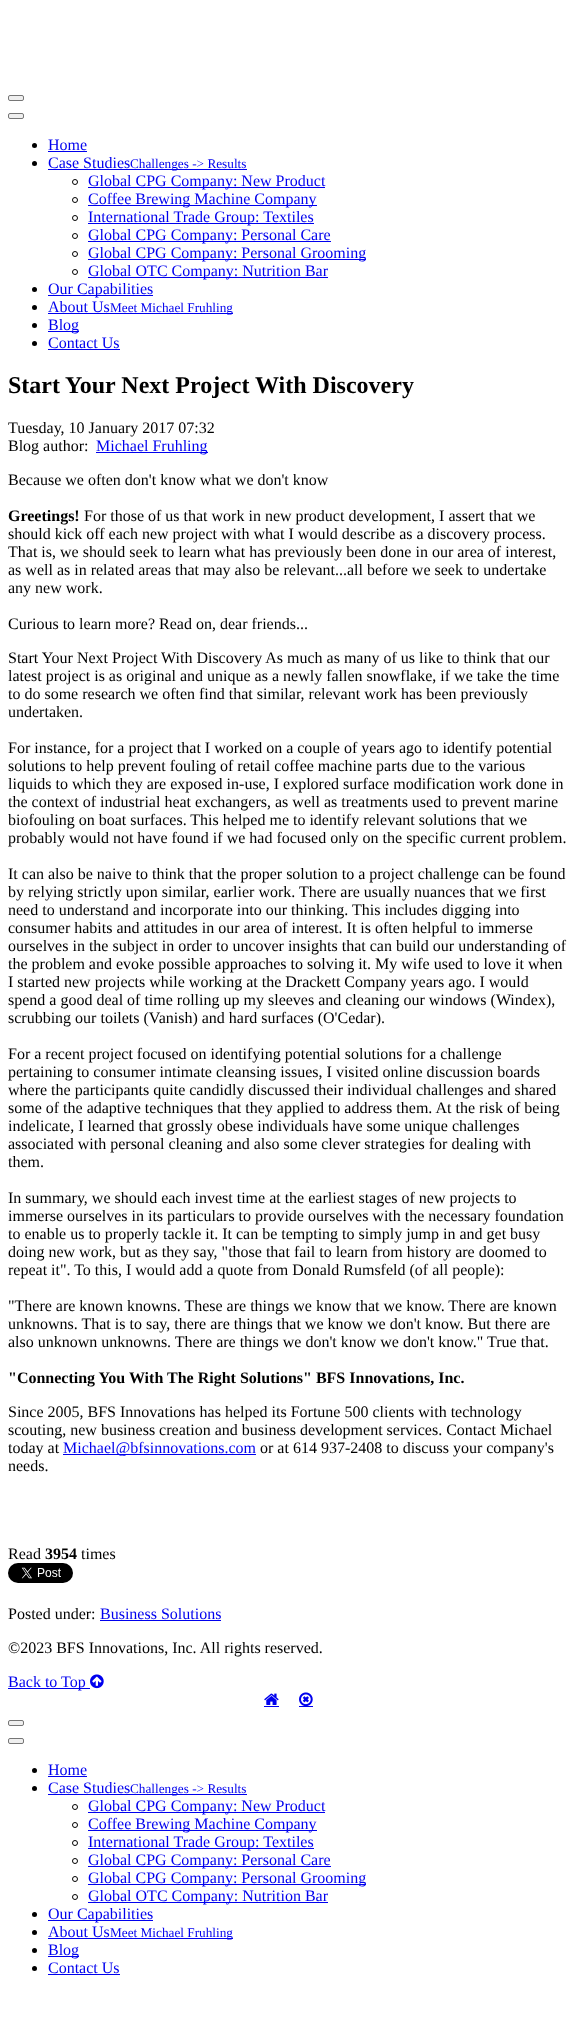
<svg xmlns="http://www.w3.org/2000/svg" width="577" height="2026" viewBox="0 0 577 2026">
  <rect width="100%" height="100%" fill="#ffffff"/>
  <rect x="8.5" y="95.5" width="15" height="5" rx="1.5" fill="#efefef" stroke="#767676"/>
  <rect x="8.5" y="113.5" width="15" height="5" rx="1.5" fill="#efefef" stroke="#767676"/>
  <circle cx="34.5" cy="145.5" r="2.5" fill="#000000"/>
  <text x="48" y="150" font-family="Liberation Serif" font-size="16" fill="#0000ee">Home</text>
  <rect x="48" y="151" width="39" height="1" fill="#0000ee"/>
  <circle cx="34.5" cy="163.5" r="2.5" fill="#000000"/>
  <text x="48" y="168" font-family="Liberation Serif" font-size="16" fill="#0000ee">Case Studies</text>
  <rect x="48" y="169" width="199" height="1" fill="#0000ee"/>
  <text x="130" y="168" font-family="Liberation Serif" font-size="13.25" fill="#0000ee">Challenges -&gt; Results</text>
  <circle cx="75" cy="182" r="2.5" fill="none" stroke="#000000"/>
  <rect x="88" y="187" width="237" height="1" fill="#0000ee"/>
  <text x="88" y="186" font-family="Liberation Serif" font-size="16" fill="#0000ee">Global CPG Company: New Product</text>
  <circle cx="75" cy="200" r="2.5" fill="none" stroke="#000000"/>
  <rect x="88" y="205" width="229" height="1" fill="#0000ee"/>
  <text x="88" y="204" font-family="Liberation Serif" font-size="16" fill="#0000ee">Coffee Brewing Machine Company</text>
  <circle cx="75" cy="218" r="2.5" fill="none" stroke="#000000"/>
  <rect x="88" y="223" width="226" height="1" fill="#0000ee"/>
  <text x="88" y="222" font-family="Liberation Serif" font-size="16" fill="#0000ee">International Trade Group: Textiles</text>
  <circle cx="75" cy="236" r="2.5" fill="none" stroke="#000000"/>
  <rect x="88" y="241" width="243" height="1" fill="#0000ee"/>
  <text x="88" y="240" font-family="Liberation Serif" font-size="16" fill="#0000ee">Global CPG Company: Personal Care</text>
  <circle cx="75" cy="254" r="2.5" fill="none" stroke="#000000"/>
  <rect x="88" y="259" width="278" height="1" fill="#0000ee"/>
  <text x="88" y="258" font-family="Liberation Serif" font-size="16" fill="#0000ee">Global CPG Company: Personal Grooming</text>
  <circle cx="75" cy="272" r="2.5" fill="none" stroke="#000000"/>
  <rect x="88" y="277" width="240" height="1" fill="#0000ee"/>
  <text x="88" y="276" font-family="Liberation Serif" font-size="16" fill="#0000ee">Global OTC Company: Nutrition Bar</text>
  <circle cx="34.5" cy="289.5" r="2.5" fill="#000000"/>
  <rect x="48" y="295" width="105" height="1" fill="#0000ee"/>
  <text x="48" y="294" font-family="Liberation Serif" font-size="16" fill="#0000ee">Our Capabilities</text>
  <circle cx="34.5" cy="307.5" r="2.5" fill="#000000"/>
  <text x="48" y="312" font-family="Liberation Serif" font-size="16" fill="#0000ee">About Us</text>
  <rect x="48" y="313" width="185" height="1" fill="#0000ee"/>
  <text x="110" y="312" font-family="Liberation Serif" font-size="13.25" fill="#0000ee">Meet Michael Fruhling</text>
  <circle cx="34.5" cy="325.5" r="2.5" fill="#000000"/>
  <rect x="48" y="331" width="31" height="1" fill="#0000ee"/>
  <text x="48" y="330" font-family="Liberation Serif" font-size="16" fill="#0000ee">Blog</text>
  <circle cx="34.5" cy="343.5" r="2.5" fill="#000000"/>
  <text x="48" y="348" font-family="Liberation Serif" font-size="16" fill="#0000ee">Contact Us</text>
  <rect x="48" y="349" width="72" height="1" fill="#0000ee"/>
  <text x="8" y="393" font-family="Liberation Serif" font-size="24" font-weight="bold" fill="#000000">Start Your Next Project With Discovery</text>
  <text x="8" y="433" font-family="Liberation Serif" font-size="16" fill="#000000">Tuesday, 10 January 2017 07:32</text>
  <text x="8" y="451" font-family="Liberation Serif" font-size="16" fill="#000000">Blog author:</text>
  <rect x="96" y="452" width="112" height="1" fill="#0000ee"/>
  <text x="96" y="451" font-family="Liberation Serif" font-size="16" fill="#0000ee">Michael Fruhling</text>
  <text x="8" y="485" font-family="Liberation Serif" font-size="16" fill="#000000">Because we often don't know what we don't know</text>
  <text x="8" y="521" font-family="Liberation Serif" font-size="16" font-weight="bold" fill="#000000">Greetings!</text>
  <text x="84" y="521" font-family="Liberation Serif" font-size="16" fill="#000000">For those of us that work in new product development, I assert that we</text>
  <text x="8" y="539" font-family="Liberation Serif" font-size="16" fill="#000000">should kick off each new project with what I would describe as a discovery process.</text>
  <text x="8" y="557" font-family="Liberation Serif" font-size="16" fill="#000000">That is, we should seek to learn what has previously been done in our area of interest,</text>
  <text x="8" y="575" font-family="Liberation Serif" font-size="16" fill="#000000">as well as in related areas that may also be relevant...all before we seek to undertake</text>
  <text x="8" y="593" font-family="Liberation Serif" font-size="16" fill="#000000">any new work.</text>
  <text x="8" y="629" font-family="Liberation Serif" font-size="16" fill="#000000">Curious to learn more? Read on, dear friends...</text>
  <text x="8" y="663" font-family="Liberation Serif" font-size="16" fill="#000000">Start Your Next Project With Discovery As much as many of us like to think that our</text>
  <text x="8" y="681" font-family="Liberation Serif" font-size="16" fill="#000000">latest project is as original and unique as a newly fallen snowflake, if we take the time</text>
  <text x="8" y="699" font-family="Liberation Serif" font-size="16" fill="#000000">to do some research we often find that similar, relevant work has been previously</text>
  <text x="8" y="717" font-family="Liberation Serif" font-size="16" fill="#000000">undertaken.</text>
  <text x="8" y="753" font-family="Liberation Serif" font-size="16" fill="#000000">For instance, for a project that I worked on a couple of years ago to identify potential</text>
  <text x="8" y="771" font-family="Liberation Serif" font-size="16" fill="#000000">solutions to help prevent fouling of retail coffee machine parts due to the various</text>
  <text x="8" y="789" font-family="Liberation Serif" font-size="16" fill="#000000">liquids to which they are exposed in-use, I explored surface modification work done in</text>
  <text x="8" y="807" font-family="Liberation Serif" font-size="16" fill="#000000">the context of industrial heat exchangers, as well as treatments used to prevent marine</text>
  <text x="8" y="825" font-family="Liberation Serif" font-size="16" fill="#000000">biofouling on boat surfaces. This helped me to identify relevant solutions that we</text>
  <text x="8" y="843" font-family="Liberation Serif" font-size="16" fill="#000000">probably would not have found if we had focused only on the specific current problem.</text>
  <text x="8" y="879" font-family="Liberation Serif" font-size="16" fill="#000000">It can also be naive to think that the proper solution to a project challenge can be found</text>
  <text x="8" y="897" font-family="Liberation Serif" font-size="16" fill="#000000">by relying strictly upon similar, earlier work. There are usually nuances that we first</text>
  <text x="8" y="915" font-family="Liberation Serif" font-size="16" fill="#000000">need to understand and incorporate into our thinking. This includes digging into</text>
  <text x="8" y="933" font-family="Liberation Serif" font-size="16" fill="#000000">consumer habits and attitudes in our area of interest. It is often helpful to immerse</text>
  <text x="8" y="951" font-family="Liberation Serif" font-size="16" fill="#000000">ourselves in the subject in order to uncover insights that can build our understanding of</text>
  <text x="8" y="969" font-family="Liberation Serif" font-size="16" fill="#000000">the problem and evoke possible approaches to solving it. My wife used to love it when</text>
  <text x="8" y="987" font-family="Liberation Serif" font-size="16" fill="#000000">I started new projects while working at the Drackett Company years ago. I would</text>
  <text x="8" y="1005" font-family="Liberation Serif" font-size="16" fill="#000000">spend a good deal of time rolling up my sleeves and cleaning our windows (Windex),</text>
  <text x="8" y="1023" font-family="Liberation Serif" font-size="16" fill="#000000">scrubbing our toilets (Vanish) and hard surfaces (O'Cedar).</text>
  <text x="8" y="1059" font-family="Liberation Serif" font-size="16" fill="#000000">For a recent project focused on identifying potential solutions for a challenge</text>
  <text x="8" y="1077" font-family="Liberation Serif" font-size="16" fill="#000000">pertaining to consumer intimate cleansing issues, I visited online discussion boards</text>
  <text x="8" y="1095" font-family="Liberation Serif" font-size="16" fill="#000000">where the participants quite candidly discussed their individual challenges and shared</text>
  <text x="8" y="1113" font-family="Liberation Serif" font-size="16" fill="#000000">some of the adaptive techniques that they applied to address them. At the risk of being</text>
  <text x="8" y="1131" font-family="Liberation Serif" font-size="16" fill="#000000">indelicate, I learned that grossly obese individuals have some unique challenges</text>
  <text x="8" y="1149" font-family="Liberation Serif" font-size="16" fill="#000000">associated with personal cleaning and also some clever strategies for dealing with</text>
  <text x="8" y="1167" font-family="Liberation Serif" font-size="16" fill="#000000">them.</text>
  <text x="8" y="1203" font-family="Liberation Serif" font-size="16" fill="#000000">In summary, we should each invest time at the earliest stages of new projects to</text>
  <text x="8" y="1221" font-family="Liberation Serif" font-size="16" fill="#000000">immerse ourselves in its particulars to provide ourselves with the necessary foundation</text>
  <text x="8" y="1239" font-family="Liberation Serif" font-size="16" fill="#000000">to enable us to properly tackle it. It can be tempting to simply jump in and get busy</text>
  <text x="8" y="1257" font-family="Liberation Serif" font-size="16" fill="#000000">doing new work, but as they say, "those that fail to learn from history are doomed to</text>
  <text x="8" y="1275" font-family="Liberation Serif" font-size="16" fill="#000000">repeat it". To this, I would add a quote from Donald Rumsfeld (of all people):</text>
  <text x="8" y="1311" font-family="Liberation Serif" font-size="16" fill="#000000">"There are known knowns. These are things we know that we know. There are known</text>
  <text x="8" y="1329" font-family="Liberation Serif" font-size="16" fill="#000000">unknowns. That is to say, there are things that we know we don't know. But there are</text>
  <text x="8" y="1347" font-family="Liberation Serif" font-size="16" fill="#000000">also unknown unknowns. There are things we don't know we don't know." True that.</text>
  <text x="8" y="1383" font-family="Liberation Serif" font-size="16" font-weight="bold" fill="#000000">"Connecting You With The Right Solutions" BFS Innovations, Inc.</text>
  <text x="8" y="1417" font-family="Liberation Serif" font-size="16" fill="#000000">Since 2005, BFS Innovations has helped its Fortune 500 clients with technology</text>
  <text x="8" y="1435" font-family="Liberation Serif" font-size="16" fill="#000000">scouting, new business creation and business development services. Contact Michael</text>
  <text x="8" y="1453" font-family="Liberation Serif" font-size="16" fill="#000000">today at</text>
  <rect x="63" y="1454" width="193" height="1" fill="#0000ee"/>
  <text x="63" y="1453" font-family="Liberation Serif" font-size="16" fill="#0000ee">Michael@bfsinnovations.com</text>
  <text x="260" y="1453" font-family="Liberation Serif" font-size="16" fill="#000000">or at 614 937-2408 to discuss your company's</text>
  <text x="8" y="1471" font-family="Liberation Serif" font-size="16" fill="#000000">needs.</text>
  <text x="8" y="1559" font-family="Liberation Serif" font-size="16" fill="#000000">Read</text>
  <text x="45" y="1559" font-family="Liberation Serif" font-size="16" font-weight="bold" fill="#000000">3954</text>
  <text x="81" y="1559" font-family="Liberation Serif" font-size="16" fill="#000000">times</text>
  <image x="8" y="1563" width="65" height="20" href="img1.png"/>
  <text x="8" y="1619" font-family="Liberation Serif" font-size="16" fill="#000000">Posted under:</text>
  <text x="100" y="1619" font-family="Liberation Serif" font-size="16" fill="#0000ee">Business Solutions</text>
  <rect x="100" y="1620" width="121" height="1" fill="#0000ee"/>
  <text x="8" y="1653" font-family="Liberation Serif" font-size="16" fill="#000000">©2023 BFS Innovations, Inc. All rights reserved.</text>
  <rect x="8" y="1688" width="82" height="1" fill="#0000ee"/>
  <text x="8" y="1687" font-family="Liberation Serif" font-size="16" fill="#0000ee">Back to Top</text>
  <image x="90" y="1674" width="14" height="15" href="img2.png"/>
  <image x="264" y="1693" width="15" height="12" href="img3.png"/>
  <rect x="264" y="1706" width="15" height="1" fill="#0000ee"/>
  <image x="299" y="1692" width="14" height="14" href="img4.png"/>
  <rect x="299" y="1706" width="14" height="1" fill="#0000ee"/>
  <rect x="8.5" y="1720.5" width="15" height="5" rx="1.5" fill="#efefef" stroke="#767676"/>
  <rect x="8.5" y="1738.5" width="15" height="5" rx="1.5" fill="#efefef" stroke="#767676"/>
  <circle cx="34.5" cy="1770.5" r="2.5" fill="#000000"/>
  <text x="48" y="1775" font-family="Liberation Serif" font-size="16" fill="#0000ee">Home</text>
  <rect x="48" y="1776" width="39" height="1" fill="#0000ee"/>
  <circle cx="34.5" cy="1788.5" r="2.5" fill="#000000"/>
  <text x="48" y="1793" font-family="Liberation Serif" font-size="16" fill="#0000ee">Case Studies</text>
  <rect x="48" y="1794" width="199" height="1" fill="#0000ee"/>
  <text x="130" y="1793" font-family="Liberation Serif" font-size="13.25" fill="#0000ee">Challenges -&gt; Results</text>
  <circle cx="75" cy="1807" r="2.5" fill="none" stroke="#000000"/>
  <rect x="88" y="1812" width="237" height="1" fill="#0000ee"/>
  <text x="88" y="1811" font-family="Liberation Serif" font-size="16" fill="#0000ee">Global CPG Company: New Product</text>
  <circle cx="75" cy="1825" r="2.5" fill="none" stroke="#000000"/>
  <rect x="88" y="1830" width="229" height="1" fill="#0000ee"/>
  <text x="88" y="1829" font-family="Liberation Serif" font-size="16" fill="#0000ee">Coffee Brewing Machine Company</text>
  <circle cx="75" cy="1843" r="2.5" fill="none" stroke="#000000"/>
  <rect x="88" y="1848" width="226" height="1" fill="#0000ee"/>
  <text x="88" y="1847" font-family="Liberation Serif" font-size="16" fill="#0000ee">International Trade Group: Textiles</text>
  <circle cx="75" cy="1861" r="2.5" fill="none" stroke="#000000"/>
  <rect x="88" y="1866" width="243" height="1" fill="#0000ee"/>
  <text x="88" y="1865" font-family="Liberation Serif" font-size="16" fill="#0000ee">Global CPG Company: Personal Care</text>
  <circle cx="75" cy="1879" r="2.5" fill="none" stroke="#000000"/>
  <rect x="88" y="1884" width="278" height="1" fill="#0000ee"/>
  <text x="88" y="1883" font-family="Liberation Serif" font-size="16" fill="#0000ee">Global CPG Company: Personal Grooming</text>
  <circle cx="75" cy="1897" r="2.5" fill="none" stroke="#000000"/>
  <rect x="88" y="1902" width="240" height="1" fill="#0000ee"/>
  <text x="88" y="1901" font-family="Liberation Serif" font-size="16" fill="#0000ee">Global OTC Company: Nutrition Bar</text>
  <circle cx="34.5" cy="1914.5" r="2.5" fill="#000000"/>
  <rect x="48" y="1920" width="105" height="1" fill="#0000ee"/>
  <text x="48" y="1919" font-family="Liberation Serif" font-size="16" fill="#0000ee">Our Capabilities</text>
  <circle cx="34.5" cy="1932.5" r="2.5" fill="#000000"/>
  <text x="48" y="1937" font-family="Liberation Serif" font-size="16" fill="#0000ee">About Us</text>
  <rect x="48" y="1938" width="185" height="1" fill="#0000ee"/>
  <text x="110" y="1937" font-family="Liberation Serif" font-size="13.25" fill="#0000ee">Meet Michael Fruhling</text>
  <circle cx="34.5" cy="1950.5" r="2.5" fill="#000000"/>
  <rect x="48" y="1956" width="31" height="1" fill="#0000ee"/>
  <text x="48" y="1955" font-family="Liberation Serif" font-size="16" fill="#0000ee">Blog</text>
  <circle cx="34.5" cy="1968.5" r="2.5" fill="#000000"/>
  <text x="48" y="1973" font-family="Liberation Serif" font-size="16" fill="#0000ee">Contact Us</text>
  <rect x="48" y="1974" width="72" height="1" fill="#0000ee"/>
</svg>
